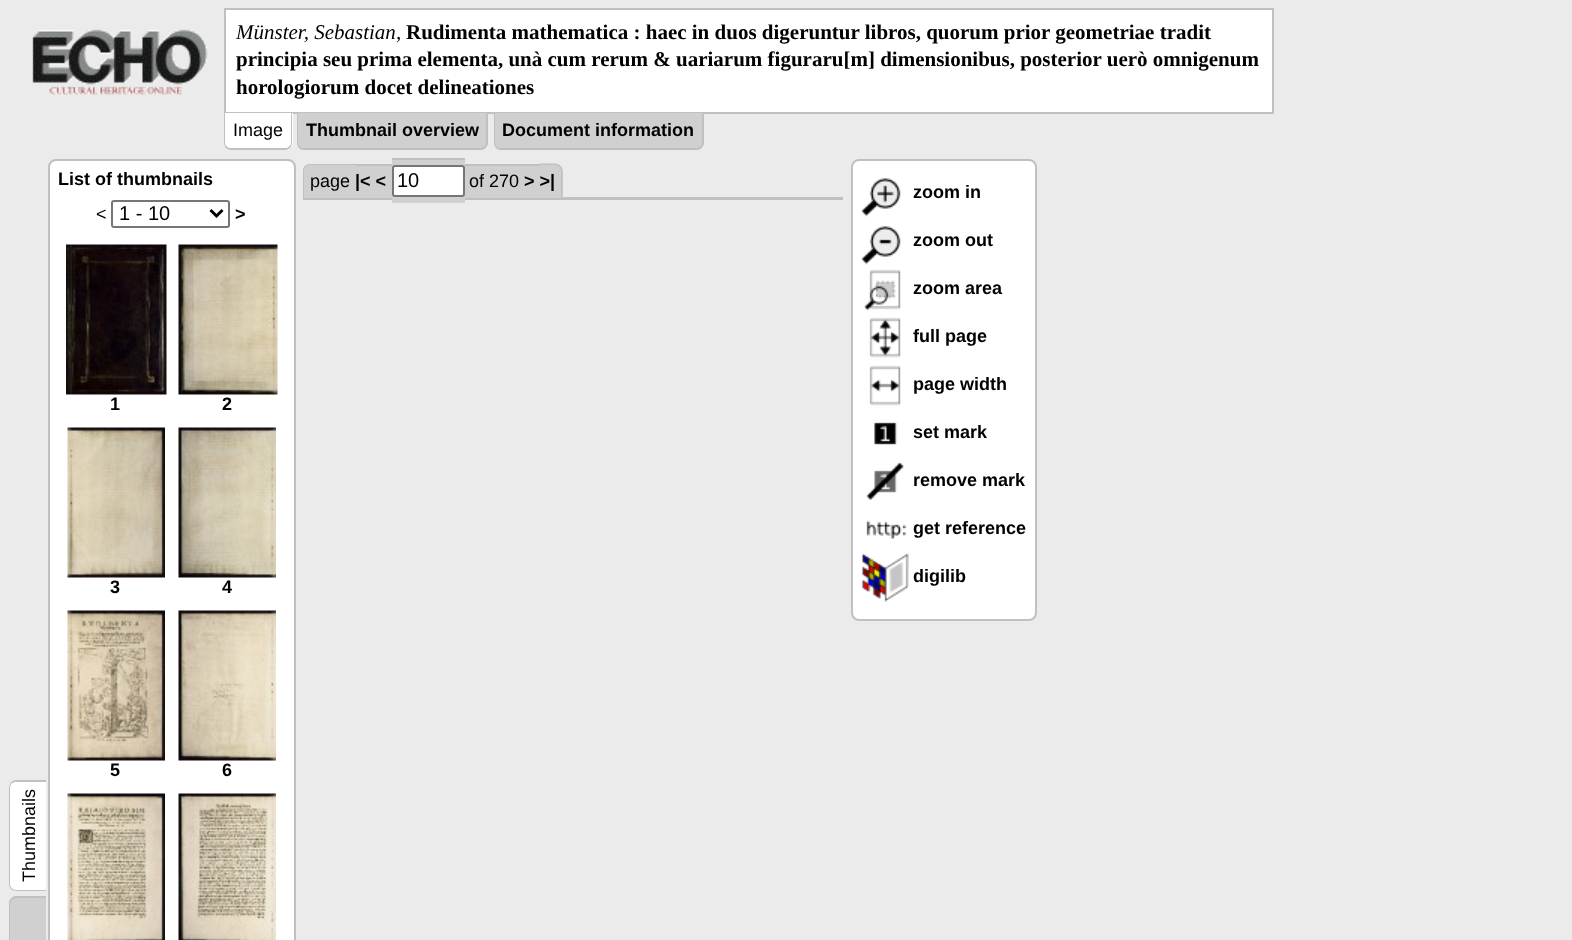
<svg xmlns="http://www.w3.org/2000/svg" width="1572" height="940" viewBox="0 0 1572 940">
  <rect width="100%" height="100%" fill="#ebebeb"/>
  <image x="32" y="29" width="176" height="66" href="img1.png"/>
  <rect x="225" y="9" width="1048" height="104" fill="#ffffff" stroke="#c0c0c0" stroke-width="2"/>
  <text x="236" y="39" font-family="Liberation Serif" font-size="21" font-style="italic" fill="#000000">Münster, Sebastian</text>
  <text x="396" y="39" font-family="Liberation Serif" font-size="21" fill="#000000">,</text>
  <text x="406" y="39" font-family="Liberation Serif" font-size="21" font-weight="bold" fill="#000000">Rudimenta mathematica : haec in duos digeruntur libros, quorum prior geometriae tradit</text>
  <text x="236" y="66" font-family="Liberation Serif" font-size="21" font-weight="bold" fill="#000000">principia seu prima elementa, unà cum rerum &amp; uariarum figuraru[m] dimensionibus, posterior uerò omnigenum</text>
  <text x="236" y="94" font-family="Liberation Serif" font-size="21" font-weight="bold" fill="#000000">horologiorum docet delineationes</text>
  <path d="M224 113H293V142C293 146.5 289.5 150 285 150H232C227.5 150 224 146.5 224 142Z" fill="#ffffff"/>
  <path d="M224 112H292V142C292 147 289 150 285 150H231C227 150 224 147 224 142ZM225 112H291V142C291 146 288 148 285 148H231C228 148 225 146 225 142Z" fill="#c0c0c0" fill-rule="evenodd"/>
  <text x="233" y="136" font-family="Liberation Sans" font-size="18" fill="#000000">Image</text>
  <path d="M297 113H488V142C488 146.5 484.5 150 480 150H305C300.5 150 297 146.5 297 142Z" fill="#d0d0d0"/>
  <path d="M297 112H488V142C488 147 484 150 480 150H304C300 150 297 147 297 142ZM298 112H486V142C486 146 483 148 480 148H304C301 148 298 146 298 142Z" fill="#c0c0c0" fill-rule="evenodd"/>
  <text x="306" y="136" font-family="Liberation Sans" font-size="18" font-weight="bold" fill="#000000">Thumbnail overview</text>
  <path d="M494 113H704V142C704 146.5 700.5 150 696 150H502C497.5 150 494 146.5 494 142Z" fill="#d0d0d0"/>
  <path d="M494 112H704V142C704 147 700 150 696 150H501C497 150 494 147 494 142ZM495 112H702V142C702 146 699 148 696 148H501C498 148 495 146 495 142Z" fill="#c0c0c0" fill-rule="evenodd"/>
  <text x="502" y="136" font-family="Liberation Sans" font-size="18" font-weight="bold" fill="#000000">Document information</text>
  <rect x="49" y="160" width="246" height="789" rx="7" fill="#ffffff" stroke="#c0c0c0" stroke-width="2"/>
  <text x="58" y="185" font-family="Liberation Sans" font-size="18" font-weight="bold" fill="#000000">List of thumbnails</text>
  <text x="96" y="220" font-family="Liberation Sans" font-size="18" fill="#000000">&lt;</text>
  <rect x="112" y="201" width="117" height="26" rx="2" fill="none" stroke="#767676" stroke-width="2"/>
  <path d="M210.5 210L216.5 216L222.5 210" fill="none" stroke="#000000" stroke-width="3"/>
  <text x="119" y="220" font-family="Liberation Sans" font-size="20" fill="#000000">1 - 10</text>
  <text x="235" y="220" font-family="Liberation Sans" font-size="18" font-weight="bold" fill="#000000">&gt;</text>
  <image x="66" y="244" width="101" height="151" href="img2.png"/>
  <text x="110" y="410" font-family="Liberation Sans" font-size="18" font-weight="bold" fill="#000000">1</text>
  <image x="178" y="244" width="100" height="151" href="img3.png"/>
  <text x="222" y="410" font-family="Liberation Sans" font-size="18" font-weight="bold" fill="#000000">2</text>
  <image x="67" y="427" width="98" height="151" href="img4.png"/>
  <text x="110" y="593" font-family="Liberation Sans" font-size="18" font-weight="bold" fill="#000000">3</text>
  <image x="178" y="427" width="98" height="151" href="img5.png"/>
  <text x="222" y="593" font-family="Liberation Sans" font-size="18" font-weight="bold" fill="#000000">4</text>
  <image x="67" y="610" width="98" height="151" href="img6.png"/>
  <text x="110" y="776" font-family="Liberation Sans" font-size="18" font-weight="bold" fill="#000000">5</text>
  <image x="178" y="610" width="98" height="151" href="img7.png"/>
  <text x="222" y="776" font-family="Liberation Sans" font-size="18" font-weight="bold" fill="#000000">6</text>
  <image x="67" y="793" width="98" height="147" href="img8.png"/>
  <image x="178" y="793" width="98" height="147" href="img9.png"/>
  <path d="M9 884V788C9 784 12 780 16 780H46V891H16C12 891 9 888 9 884Z" fill="#ffffff"/>
  <path d="M9 884V788C9 784 12 780 16 780H46V891H16C12 891 9 888 9 884ZM10 884V788C10 784 13 782 16 782H46V890H16C13 890 10 887 10 884Z" fill="#c0c0c0" fill-rule="evenodd"/>
  <text x="35" y="882" transform="rotate(-90 35 882)" font-family="Liberation Sans" font-size="18" fill="#000000">Thumbnails</text>
  <path d="M9 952V904C9 900 12 896 16 896H46V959H16C12 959 9 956 9 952Z" fill="#d0d0d0"/>
  <path d="M9 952V904C9 900 12 896 16 896H46V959H16C12 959 9 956 9 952ZM10 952V904C10 901 13 898 16 898H46V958H16C13 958 10 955 10 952Z" fill="#c0c0c0" fill-rule="evenodd"/>
  <rect x="303" y="197" width="540" height="3" fill="#c0c0c0"/>
  <path d="M311 164H356V198H303V172C303 167.5 306.5 164 311 164Z" fill="#d0d0d0"/>
  <path d="M310 164H356V198H303V171C303 167 306 164 310 164ZM310 165H356V198H304V171C304 168 307 165 310 165Z" fill="#c0c0c0" fill-rule="evenodd"/>
  <rect x="356" y="166" width="15" height="32" fill="#d0d0d0"/>
  <rect x="356" y="164" width="15" height="2" fill="#c0c0c0"/>
  <rect x="371" y="164" width="4" height="34" fill="#d0d0d0"/>
  <rect x="371" y="164" width="15" height="2" fill="#c0c0c0"/>
  <rect x="375" y="166" width="11" height="32" fill="#d0d0d0"/>
  <rect x="386" y="164" width="6" height="34" fill="#d0d0d0"/>
  <rect x="386" y="164" width="6" height="2" fill="#c0c0c0"/>
  <rect x="392" y="160" width="73" height="43" fill="#d0d0d0"/>
  <rect x="392" y="158" width="73" height="2" fill="#c0c0c0"/>
  <rect x="465" y="164" width="5" height="34" fill="#d0d0d0"/>
  <rect x="465" y="164" width="71" height="2" fill="#c0c0c0"/>
  <rect x="470" y="166" width="66" height="32" fill="#d0d0d0"/>
  <rect x="536" y="164" width="4" height="34" fill="#d0d0d0"/>
  <rect x="536" y="164" width="5" height="2" fill="#c0c0c0"/>
  <path d="M540 164H555C559.5 164 563 167.5 563 172V198H540Z" fill="#d0d0d0"/>
  <path d="M540 163.5H555C559 163.5 562.5 167 562.5 171V198H540ZM540 165H555C558.5 165 561 167.5 561 171V198H540Z" fill="#c0c0c0" fill-rule="evenodd"/>
  <text x="310" y="187" font-family="Liberation Sans" font-size="18" fill="#000000">page</text>
  <text x="355" y="187" font-family="Liberation Sans" font-size="18" font-weight="bold" fill="#000000">|&lt; &lt;</text>
  <rect x="393" y="166" width="71" height="30" rx="2" fill="#ffffff" stroke="#767676" stroke-width="2"/>
  <text x="397" y="187" font-family="Liberation Sans" font-size="20" fill="#000000">10</text>
  <text x="469" y="187" font-family="Liberation Sans" font-size="18" fill="#000000">of 270</text>
  <text x="524" y="187" font-family="Liberation Sans" font-size="18" font-weight="bold" fill="#000000">&gt; &gt;|</text>
  <rect x="852" y="160" width="184" height="460" rx="7" fill="#ffffff" stroke="#c0c0c0" stroke-width="2"/>
  <image x="861" y="178" width="40" height="39" href="img10.png"/>
  <text x="913" y="198" font-family="Liberation Sans" font-size="18" font-weight="bold" fill="#000000">zoom in</text>
  <image x="861" y="226" width="40" height="39" href="img11.png"/>
  <text x="913" y="246" font-family="Liberation Sans" font-size="18" font-weight="bold" fill="#000000">zoom out</text>
  <image x="864" y="269" width="37" height="42" href="img12.png"/>
  <text x="913" y="294" font-family="Liberation Sans" font-size="18" font-weight="bold" fill="#000000">zoom area</text>
  <image x="869" y="317" width="32" height="41" href="img13.png"/>
  <text x="913" y="342" font-family="Liberation Sans" font-size="18" font-weight="bold" fill="#000000">full page</text>
  <image x="869" y="365" width="32" height="41" href="img14.png"/>
  <text x="913" y="390" font-family="Liberation Sans" font-size="18" font-weight="bold" fill="#000000">page width</text>
  <image x="874" y="422" width="24" height="23" href="img15.png"/>
  <text x="913" y="438" font-family="Liberation Sans" font-size="18" font-weight="bold" fill="#000000">set mark</text>
  <image x="866" y="462" width="38" height="38" href="img16.png"/>
  <text x="913" y="486" font-family="Liberation Sans" font-size="18" font-weight="bold" fill="#000000">remove mark</text>
  <image x="866" y="520" width="41" height="19" href="img17.png"/>
  <text x="913" y="534" font-family="Liberation Sans" font-size="18" font-weight="bold" fill="#000000">get reference</text>
  <image x="862" y="553" width="47" height="49" href="img18.png"/>
  <text x="913" y="582" font-family="Liberation Sans" font-size="18" font-weight="bold" fill="#000000">digilib</text>
</svg>
